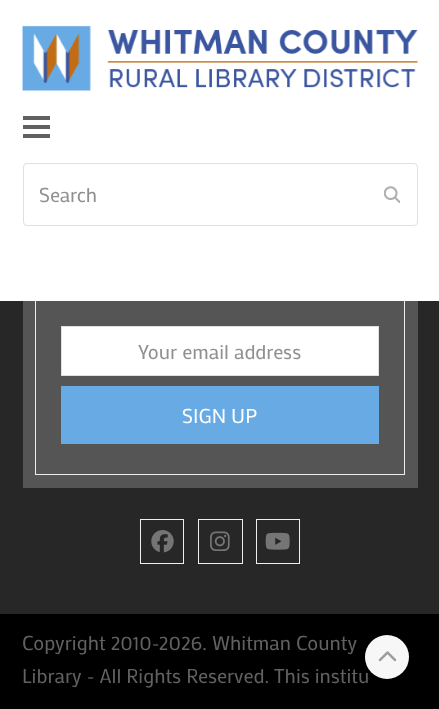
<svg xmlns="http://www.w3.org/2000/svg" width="439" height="709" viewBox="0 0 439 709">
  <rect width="100%" height="100%" fill="#272727"/>
  <rect x="23" y="301" width="395" height="187" fill="#555555"/>
  <rect x="35.5" y="249.5" width="369" height="225" fill="none" stroke="#eeeeee"/>
  <rect x="0" y="0" width="439" height="301" fill="#ffffff"/>
  <image x="22" y="25" width="396" height="67" href="img1.png"/>
  <rect x="23" y="125" width="27" height="4" fill="#616161"/>
  <rect x="23" y="116" width="27" height="4" fill="#616161"/>
  <rect x="23" y="134" width="27" height="4" fill="#616161"/>
  <rect x="23.5" y="163.5" width="394" height="62" rx="3.5" fill="none" stroke="#e0e0e0"/>
  <text x="39" y="202" font-family="Mako" font-size="20" fill="#909090">Search</text>
  <image x="384" y="186" width="16" height="17" href="img2.png"/>
  <rect x="61.5" y="326.5" width="317" height="49" fill="#ffffff" stroke="#e0e0e0"/>
  <text x="138" y="359" font-family="Mako" font-size="20" fill="#909090">Your email address</text>
  <rect x="61" y="386" width="318" height="58" fill="#68abe4"/>
  <text x="182" y="423" font-family="Mako" font-size="20" fill="#ffffff">SIGN UP</text>
  <rect x="140.5" y="519.5" width="43" height="44" fill="none" stroke="#eeeeee"/>
  <image x="151" y="530" width="23" height="23" href="img3.png"/>
  <rect x="198.5" y="519.5" width="44" height="44" fill="none" stroke="#eeeeee"/>
  <image x="210" y="531" width="20" height="20" href="img4.png"/>
  <rect x="256.5" y="519.5" width="43" height="44" fill="none" stroke="#eeeeee"/>
  <image x="265" y="532" width="25" height="18" href="img5.png"/>
  <rect x="0" y="614" width="439" height="95" fill="#000000"/>
  <text x="22" y="650" font-family="Mako" font-size="20" fill="#616161">Copyright 2010-2026. Whitman County</text>
  <text x="22" y="683" font-family="Mako" font-size="20" fill="#616161">Library - All Rights Reserved. This institu</text>
  <circle cx="387" cy="657" r="22" fill="#f7f7f7"/>
  <image x="378" y="651" width="19" height="11" href="img6.png"/>
</svg>
